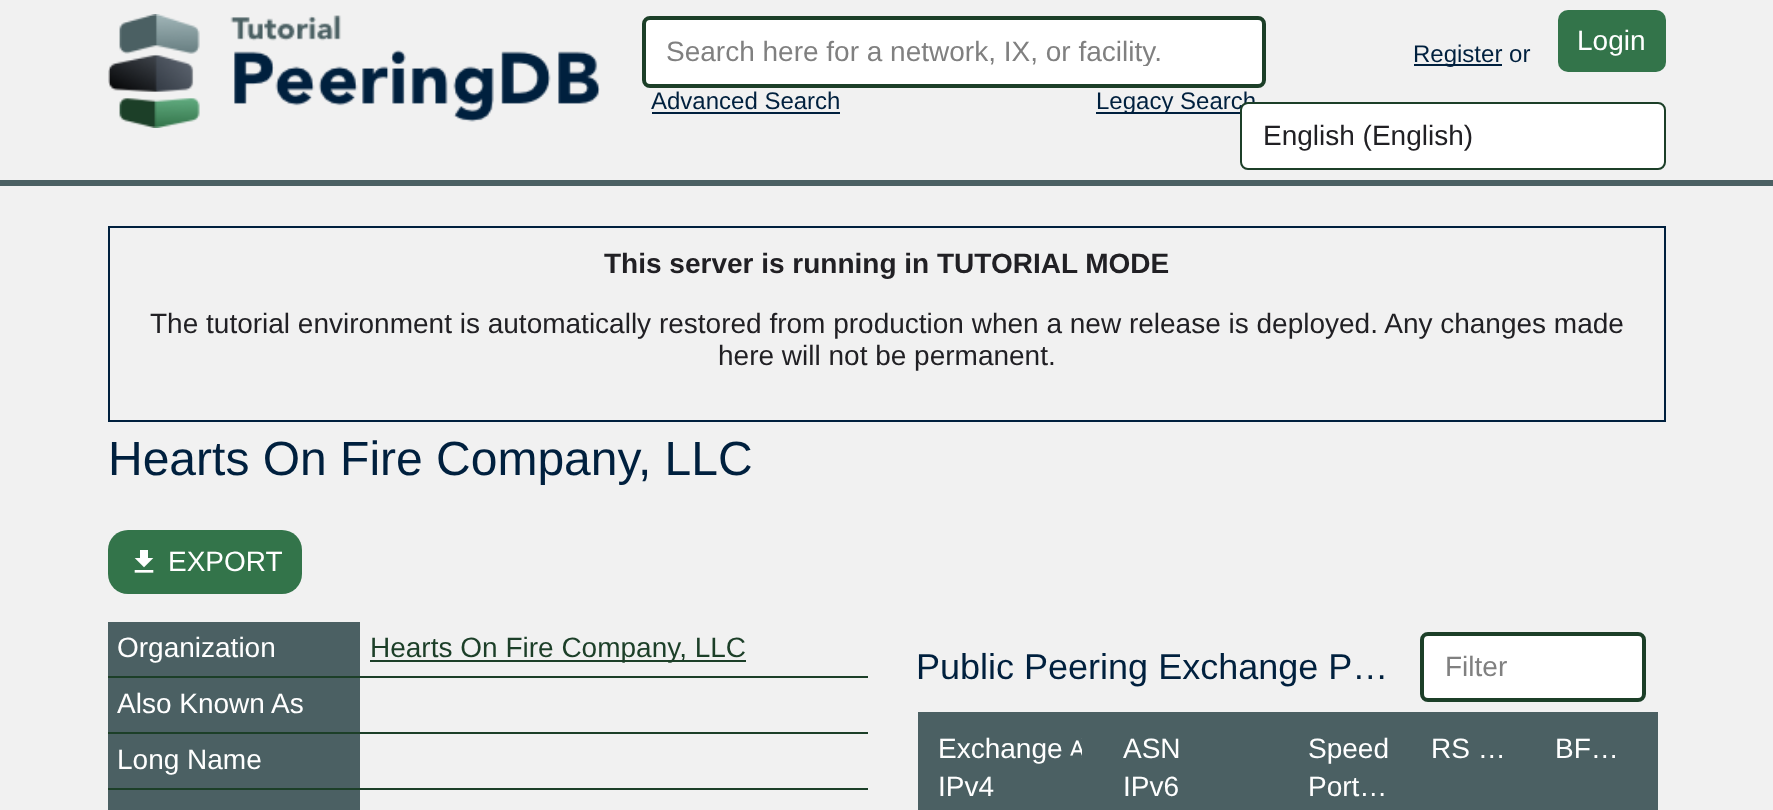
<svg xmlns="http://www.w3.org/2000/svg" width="1773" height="810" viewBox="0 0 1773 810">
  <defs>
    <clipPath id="clip1"><rect x="666" y="34" width="574" height="32"/></clipPath>
  </defs>
  <rect width="100%" height="100%" fill="#f1f1f1"/>
  <rect x="0" y="180" width="1773" height="6" fill="#4b6063"/>
  <image x="108" y="14" width="492" height="114" href="img1.png"/>
  <rect x="644" y="18" width="620" height="68" rx="6" fill="#ffffff" stroke="#1c3f28" stroke-width="4"/>
  <g clip-path="url(#clip1)">
    <text x="666" y="61" font-family="Liberation Sans" font-size="28" fill="#808080">Search here for a network, IX, or facility.</text>
  </g>
  <text x="651" y="109" font-family="Liberation Sans" font-size="24" fill="#00203e">Advanced Search</text>
  <rect x="652" y="112" width="188" height="2" fill="#00203e"/>
  <rect x="1096" y="112" width="144" height="2" fill="#00203e"/>
  <text x="1096" y="109" font-family="Liberation Sans" font-size="24" fill="#00203e">Legacy Search</text>
  <rect x="1414" y="64" width="88" height="2" fill="#00203e"/>
  <text x="1413" y="62" font-family="Liberation Sans" font-size="24" fill="#00203e">Register or</text>
  <rect x="1558" y="10" width="108" height="62" rx="10" fill="#33744a"/>
  <text x="1577" y="50" font-family="Liberation Sans" font-size="28" fill="#ffffff">Login</text>
  <rect x="1242" y="104" width="422" height="64" rx="5" fill="#ffffff"/>
  <rect x="1241" y="103" width="424" height="66" rx="7" fill="none" stroke="#1c3f28" stroke-width="2"/>
  <text x="1263" y="145" font-family="Liberation Sans" font-size="28" fill="#212024">English (English)</text>
  <rect x="109" y="227" width="1556" height="194" fill="none" stroke="#00203e" stroke-width="2"/>
  <text x="604" y="273" font-family="Liberation Sans" font-size="28" font-weight="bold" fill="#212024">This server is running in TUTORIAL MODE</text>
  <text x="150" y="333" font-family="Liberation Sans" font-size="28" fill="#212024">The tutorial environment is automatically restored from production when a new release is deployed. Any changes made</text>
  <text x="718" y="365" font-family="Liberation Sans" font-size="28" fill="#212024">here will not be permanent.</text>
  <text x="108" y="475" font-family="Liberation Sans" font-size="48" fill="#00203e">Hearts On Fire Company, LLC</text>
  <rect x="108" y="530" width="194" height="64" rx="20" fill="#33744a"/>
  <image x="134" y="550" width="20" height="23" href="img2.png"/>
  <text x="168" y="571" font-family="Liberation Sans" font-size="28" fill="#ffffff">EXPORT</text>
  <rect x="108" y="622" width="252" height="188" fill="#4b6063"/>
  <rect x="108" y="676" width="760" height="2" fill="#1c3f28"/>
  <text x="117" y="657" font-family="Liberation Sans" font-size="28" fill="#ffffff">Organization</text>
  <rect x="370" y="660" width="376" height="2" fill="#1c3f28"/>
  <text x="370" y="657" font-family="Liberation Sans" font-size="28" fill="#1c3f28">Hearts On Fire Company, LLC</text>
  <rect x="108" y="732" width="760" height="2" fill="#1c3f28"/>
  <text x="117" y="713" font-family="Liberation Sans" font-size="28" fill="#ffffff">Also Known As</text>
  <rect x="108" y="788" width="760" height="2" fill="#1c3f28"/>
  <text x="117" y="769" font-family="Liberation Sans" font-size="28" fill="#ffffff">Long Name</text>
  <text x="916" y="679" font-family="Liberation Sans" font-size="36" fill="#00203e">Public Peering Exchange P…</text>
  <rect x="1422" y="634" width="222" height="66" rx="6" fill="#ffffff" stroke="#1c3f28" stroke-width="4"/>
  <text x="1445" y="676" font-family="Liberation Sans" font-size="28" fill="#808080">Filter</text>
  <rect x="918" y="712" width="740" height="98" fill="#4b6063"/>
  <text x="938" y="758" font-family="Liberation Sans" font-size="28" fill="#ffffff">Exchange</text>
  <image x="1070" y="738" width="12" height="20" href="img3.png"/>
  <text x="938" y="796" font-family="Liberation Sans" font-size="28" fill="#ffffff">IPv4</text>
  <text x="1123" y="758" font-family="Liberation Sans" font-size="28" fill="#ffffff">ASN</text>
  <text x="1123" y="796" font-family="Liberation Sans" font-size="28" fill="#ffffff">IPv6</text>
  <text x="1308" y="758" font-family="Liberation Sans" font-size="28" fill="#ffffff">Speed</text>
  <text x="1308" y="796" font-family="Liberation Sans" font-size="28" fill="#ffffff">Port…</text>
  <text x="1431" y="758" font-family="Liberation Sans" font-size="28" fill="#ffffff">RS …</text>
  <text x="1555" y="758" font-family="Liberation Sans" font-size="28" fill="#ffffff">BF…</text>
</svg>
